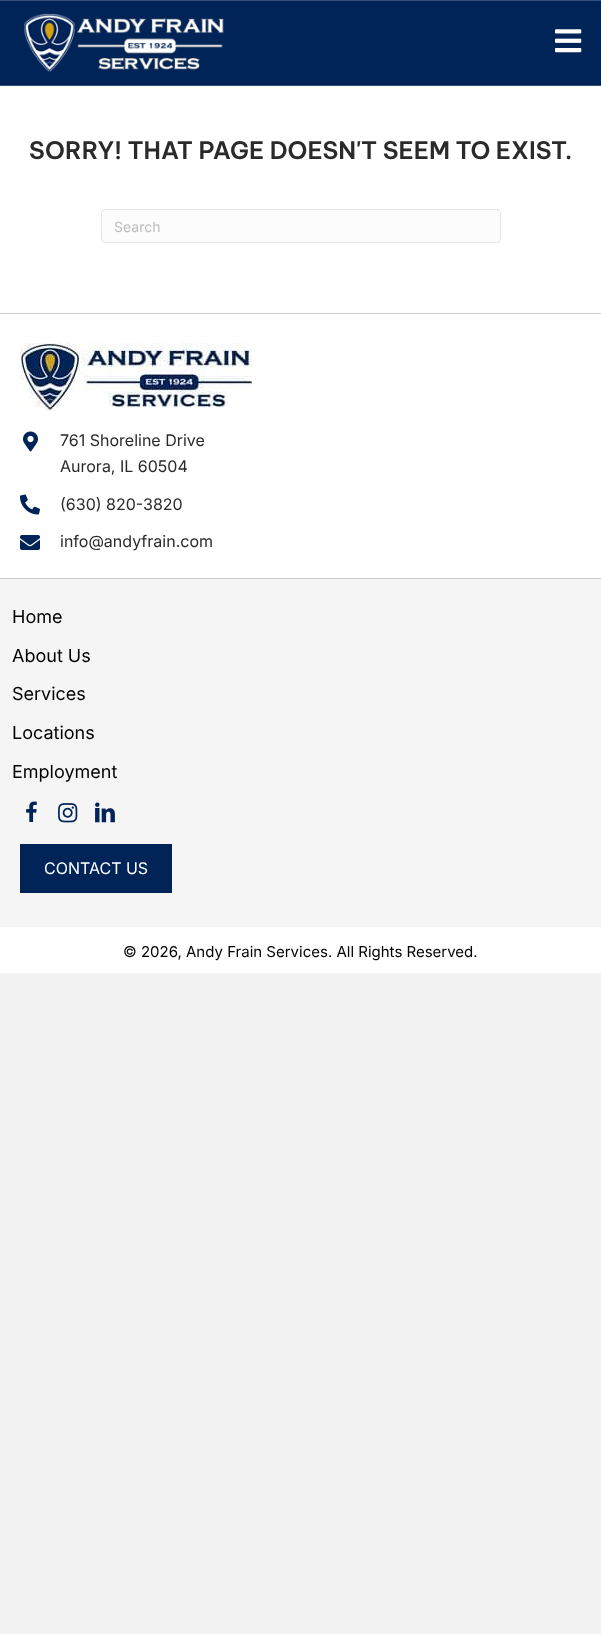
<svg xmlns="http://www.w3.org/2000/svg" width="601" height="1634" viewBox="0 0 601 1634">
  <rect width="100%" height="100%" fill="#f2f2f2"/>
  <rect x="0" y="1" width="601" height="84" fill="#002458"/>
  <rect x="0" y="0" width="601" height="1" fill="#334f78"/>
  <rect x="0" y="85" width="601" height="1" fill="#334f78"/>
  <image x="24" y="13" width="200" height="59" href="img1.png"/>
  <image x="555" y="29" width="27" height="24" href="img2.png"/>
  <rect x="0" y="86" width="601" height="227" fill="#ffffff"/>
  <text x="29" y="159" font-family="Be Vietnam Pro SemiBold" font-size="24" font-weight="600" fill="#2a2a2a">SORRY! THAT PAGE DOESN'T SEEM TO EXIST.</text>
  <rect x="101.5" y="209.5" width="399" height="33" rx="3.5" fill="#fcfcfc" stroke="#e6e6e6"/>
  <text x="114" y="232" font-family="Inter" font-size="14" fill="#bcbcbc">Search</text>
  <rect x="0" y="314" width="601" height="264" fill="#ffffff"/>
  <rect x="0" y="313" width="601" height="1" fill="#cccccc"/>
  <rect x="0" y="578" width="601" height="1" fill="#cccccc"/>
  <image x="20" y="343" width="234" height="68" href="img3.png"/>
  <image x="23" y="431" width="15" height="21" href="img4.png"/>
  <text x="60" y="446" font-family="Inter" font-size="16" fill="#2a2a2a">761 Shoreline Drive</text>
  <text x="60" y="472" font-family="Inter" font-size="16" fill="#2a2a2a">Aurora, IL 60504</text>
  <image x="20" y="494" width="20" height="21" href="img5.png"/>
  <text x="60" y="510" font-family="Inter" font-size="16" fill="#2a2a2a">(630) 820-3820</text>
  <image x="20" y="535" width="20" height="15" href="img6.png"/>
  <text x="60" y="547" font-family="Inter" font-size="16" fill="#2a2a2a">info@andyfrain.com</text>
  <rect x="0" y="579" width="601" height="348" fill="#f5f5f5"/>
  <text x="12" y="623" font-family="Inter" font-size="18" fill="#000000">Home</text>
  <text x="12" y="662" font-family="Inter" font-size="18" fill="#000000">About Us</text>
  <text x="12" y="700" font-family="Inter" font-size="18" fill="#000000">Services</text>
  <text x="12" y="739" font-family="Inter" font-size="18" fill="#000000">Locations</text>
  <text x="12" y="778" font-family="Inter" font-size="18" fill="#000000">Employment</text>
  <image x="26" y="801" width="11" height="21" href="img7.png"/>
  <image x="58" y="803" width="20" height="20" href="img8.png"/>
  <image x="95" y="802" width="20" height="21" href="img9.png"/>
  <rect x="20" y="844" width="152" height="49" fill="#002458"/>
  <text x="44" y="874" font-family="Inter" font-size="16" fill="#ffffff">CONTACT US</text>
  <rect x="0" y="927" width="601" height="46" fill="#ffffff"/>
  <text x="123" y="957" font-family="Inter" font-size="15" fill="#000000">© 2026, Andy Frain Services. All Rights Reserved.</text>
</svg>
